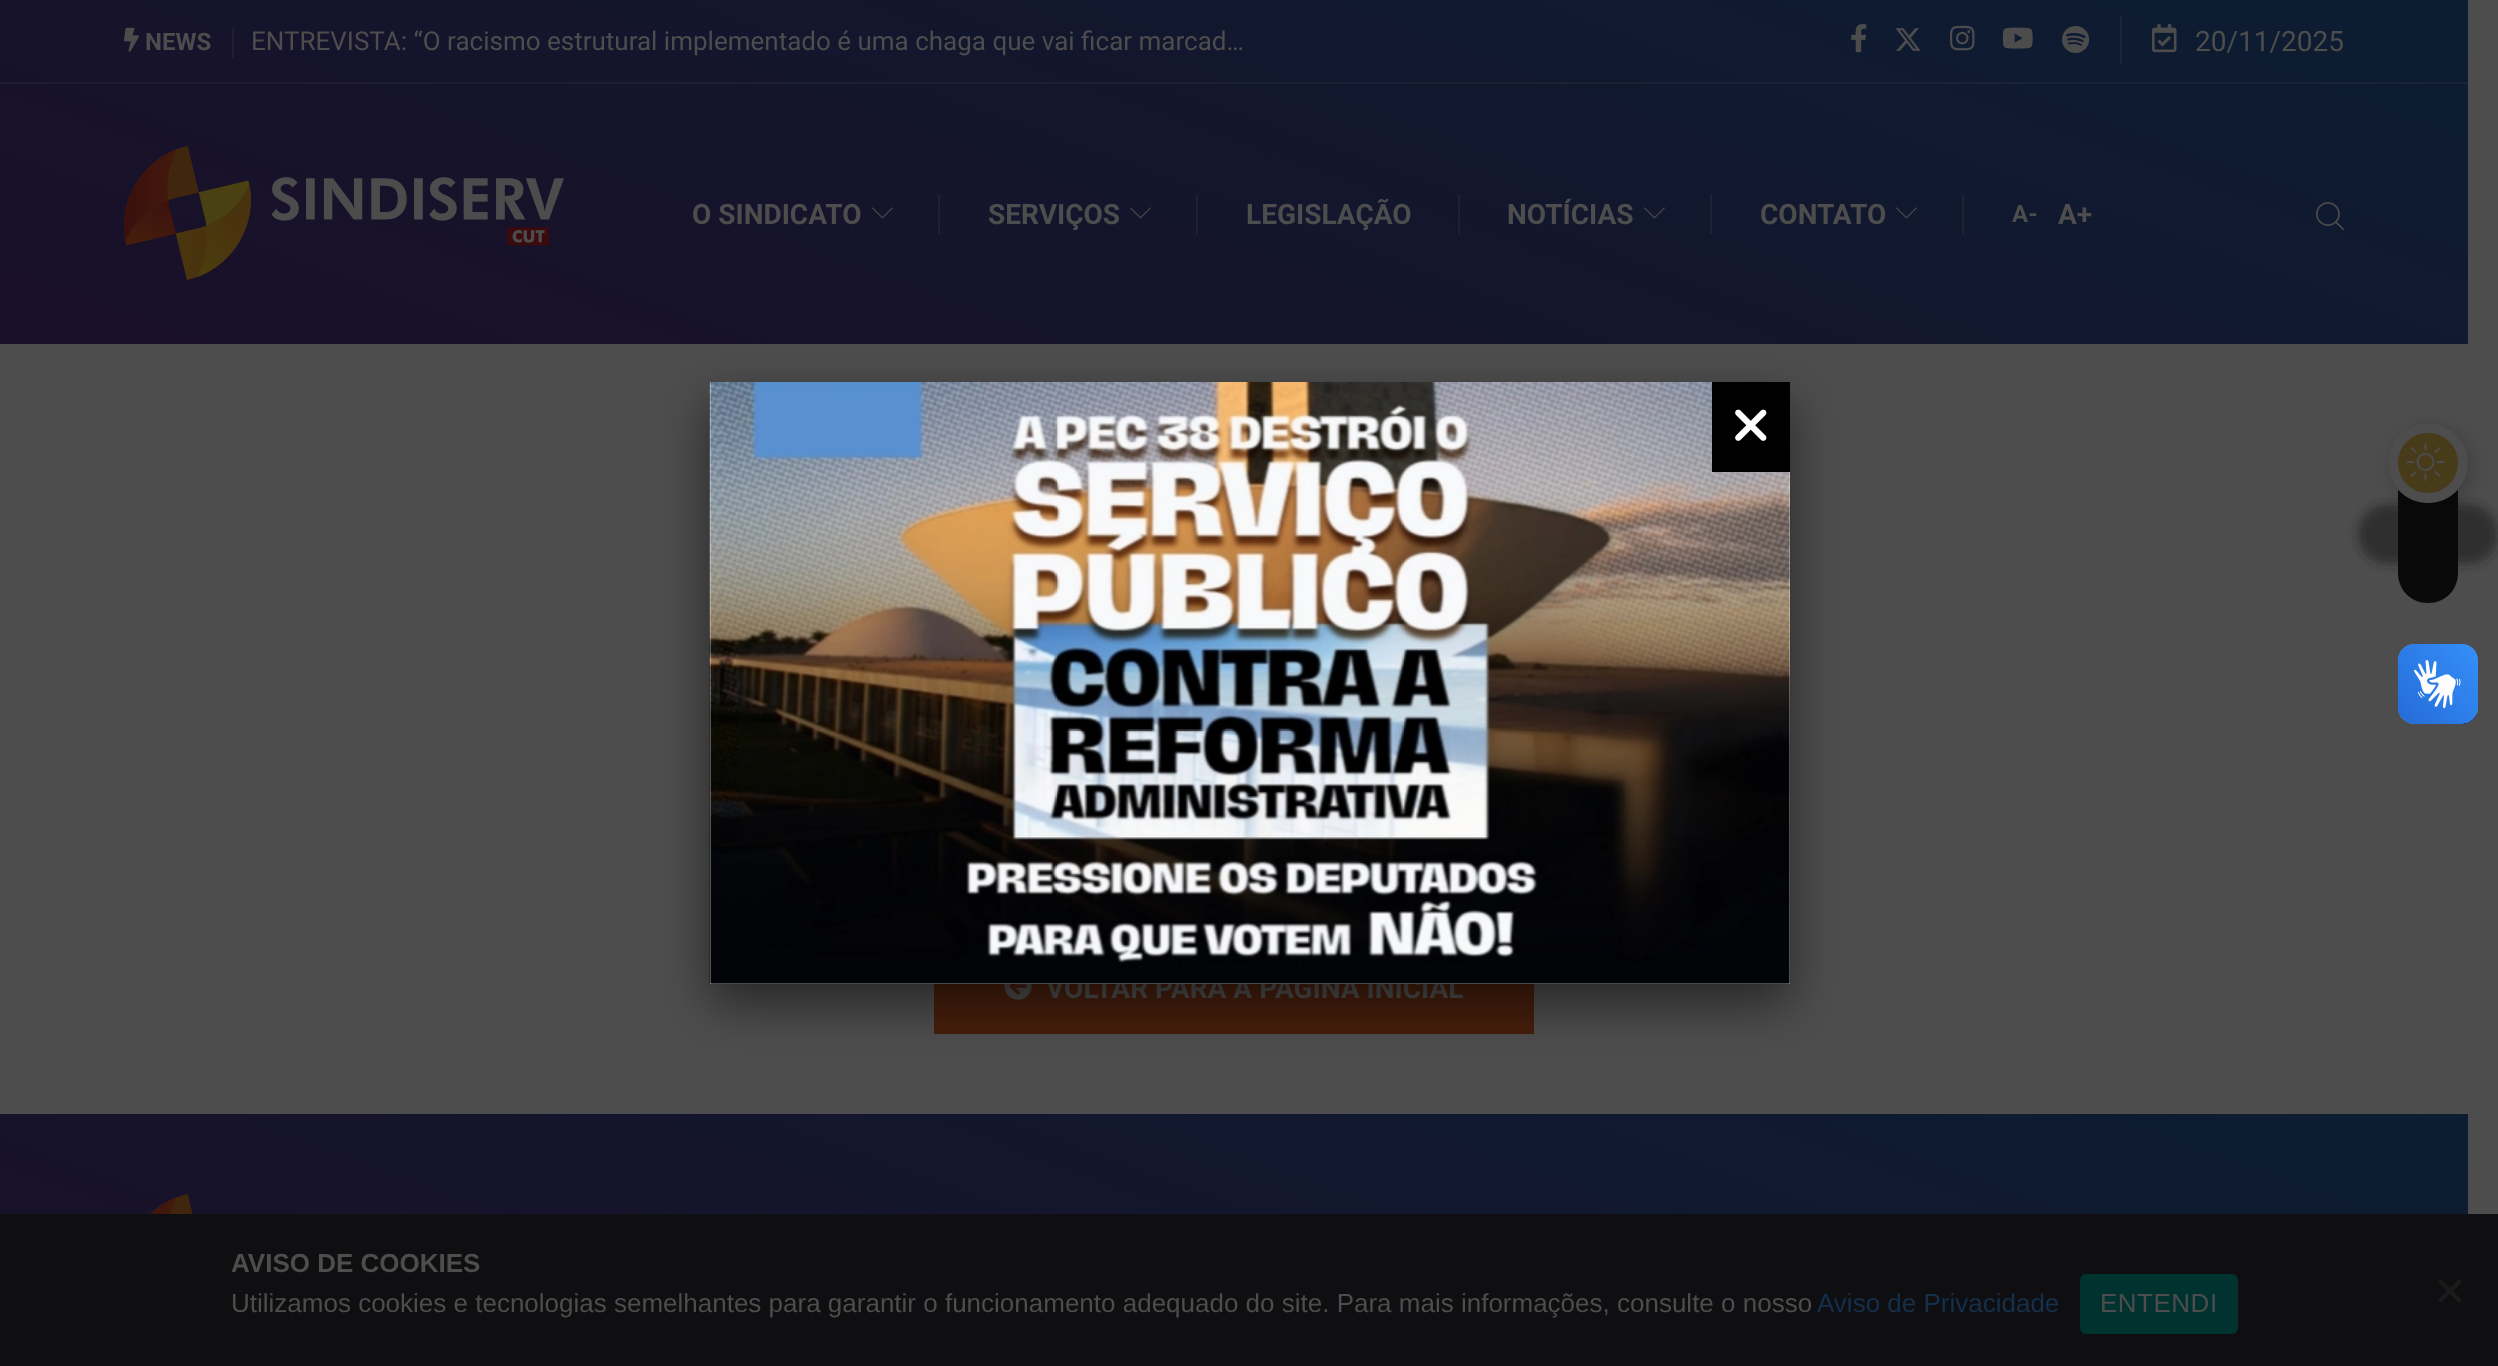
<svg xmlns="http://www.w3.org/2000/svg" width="2498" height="1366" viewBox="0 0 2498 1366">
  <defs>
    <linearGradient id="g1" gradientUnits="userSpaceOnUse" x1="1034" y1="720" x2="1434" y2="-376"><stop offset="0" stop-color="#1a0f28"/><stop offset="1" stop-color="#0c1d32"/></linearGradient>
    <linearGradient id="g2" gradientUnits="userSpaceOnUse" x1="1034" y1="720" x2="1434" y2="-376"><stop offset="0" stop-color="#21182e"/><stop offset="1" stop-color="#152536"/></linearGradient>
    <linearGradient id="g3" gradientUnits="userSpaceOnUse" x1="1042" y1="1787" x2="1426" y2="735"><stop offset="0" stop-color="#1a0f28"/><stop offset="1" stop-color="#0c1d32"/></linearGradient>
    <filter id="blur1" x="-50%" y="-200%" width="200%" height="500%"><feGaussianBlur stdDeviation="25"/></filter>
    <filter id="blur2" x="-50%" y="-200%" width="200%" height="500%"><feGaussianBlur stdDeviation="5"/></filter>
    <filter id="blur3" x="-50%" y="-200%" width="200%" height="500%"><feGaussianBlur stdDeviation="10"/></filter>
  </defs>
  <rect width="100%" height="100%" fill="#4d4d4d"/>
  <rect x="0" y="0" width="2468" height="344" fill="url(#g1)"/>
  <rect x="0" y="82" width="2468" height="2" fill="url(#g2)"/>
  <rect x="232" y="28" width="2" height="30" fill="#201f32"/>
  <image x="124" y="27" width="15" height="25" href="img1.png"/>
  <text x="145" y="50" font-family="Roboto" font-size="24" font-weight="bold" fill="#4d4d4d">NEWS</text>
  <text x="251" y="50" font-family="Roboto" font-size="26" fill="#4d4d4d">ENTREVISTA: “O racismo estrutural implementado é uma chaga que vai ficar marcad…</text>
  <rect x="2120" y="16" width="2" height="48" fill="#1a2537"/>
  <image x="1851" y="24" width="16" height="29" href="img2.png"/>
  <image x="1895" y="28" width="26" height="23" href="img3.png"/>
  <image x="1950" y="25" width="25" height="26" href="img4.png"/>
  <image x="2002" y="27" width="31" height="22" href="img5.png"/>
  <image x="2062" y="25" width="28" height="29" href="img6.png"/>
  <image x="2152" y="24" width="25" height="29" href="img7.png"/>
  <text x="2195" y="51" font-family="Roboto" font-size="28" fill="#4d4d4d">20/11/2025</text>
  <image x="124" y="146" width="440" height="134" href="img8.png"/>
  <text x="692" y="224" font-family="Roboto" font-size="28" font-weight="bold" fill="#4d4d4d">O SINDICATO</text>
  <image x="872" y="207" width="21" height="12" href="img9.png"/>
  <rect x="938" y="194" width="2" height="40" fill="#202033"/>
  <text x="988" y="224" font-family="Roboto" font-size="28" font-weight="bold" fill="#4d4d4d">SERVIÇOS</text>
  <image x="1130" y="207" width="21" height="12" href="img10.png"/>
  <rect x="1196" y="194" width="2" height="40" fill="#1f2033"/>
  <text x="1246" y="224" font-family="Roboto" font-size="28" font-weight="bold" fill="#4d4d4d">LEGISLAÇÃO</text>
  <rect x="1458" y="194" width="2" height="40" fill="#1e2134"/>
  <text x="1507" y="224" font-family="Roboto" font-size="28" font-weight="bold" fill="#4d4d4d">NOTÍCIAS</text>
  <image x="1644" y="207" width="21" height="12" href="img11.png"/>
  <rect x="1710" y="194" width="2" height="40" fill="#1d2235"/>
  <text x="1760" y="224" font-family="Roboto" font-size="28" font-weight="bold" fill="#4d4d4d">CONTATO</text>
  <image x="1896" y="207" width="21" height="12" href="img12.png"/>
  <rect x="1962" y="194" width="2" height="40" fill="#1c2335"/>
  <text x="2012" y="222" font-family="Roboto" font-size="24" font-weight="bold" fill="#4d4d4d">A-</text>
  <text x="2058" y="224" font-family="Roboto" font-size="28" font-weight="bold" fill="#4d4d4d">A+</text>
  <image x="2316" y="202" width="28" height="29" href="img13.png"/>
  <rect x="934" y="984" width="600" height="50" fill="#461e0c"/>
  <image x="1004" y="984" width="28" height="16" href="img14.png"/>
  <text x="1046" y="998" font-family="Roboto" font-size="28" font-weight="bold" fill="#4d4d4d">VOLTAR PARA A PÁGINA INICIAL</text>
  <rect x="0" y="1114" width="2468" height="100" fill="url(#g3)"/>
  <image x="150" y="1194" width="43" height="20" href="img15.png"/>
  <rect x="710" y="402" width="1080" height="602" fill="#020202" fill-opacity="0.5" filter="url(#blur1)"/>
  <rect x="710" y="382" width="1080" height="602" fill="#ffffff"/>
  <image x="709" y="382" width="1081" height="602" href="img16.png"/>
  <rect x="1712" y="382" width="78" height="90" fill="#000000"/>
  <image x="1735" y="409" width="32" height="32" href="img17.png"/>
  <rect x="2358" y="504" width="140" height="60" rx="30" fill="#242424" fill-opacity="0.7" filter="url(#blur2)"/>
  <path d="M2458 493V573C2458 590 2445 603 2428 603C2411 603 2398 590 2398 573V493C2398 476 2411 463 2428 463C2445 463 2458 476 2458 493Z" fill="#0a0a0a"/>
  <rect x="2392" y="428" width="80" height="80" rx="40" fill="#000000" fill-opacity="0.2" filter="url(#blur3)"/>
  <path d="M2468 463C2468 485 2450 503 2428 503C2406 503 2388 485 2388 463C2388 441 2406 423 2428 423C2450 423 2468 441 2468 463Z" fill="#473b1a"/>
  <path d="M2463 463C2463 482.5 2447.5 498 2428 498C2408.5 498 2393 482.5 2393 463C2393 443.5 2408.5 428 2428 428C2447.5 428 2463 443.5 2463 463Z" fill="none" stroke="#4d4d4d" stroke-width="10"/>
  <image x="2406" y="443" width="39" height="38" href="img18.png"/>
  <image x="2398" y="644" width="80" height="80" href="img19.png"/>
  <image x="2398" y="644" width="80" height="80" href="img20.png"/>
  <rect x="0" y="1214" width="2498" height="152" fill="#0f0f11"/>
  <text x="231" y="1272" font-family="Liberation Sans" font-size="26" font-weight="bold" fill="#4d4d4d">AVISO DE COOKIES</text>
  <text x="231" y="1312" font-family="Liberation Sans" font-size="26" fill="#4d4d4d">Utilizamos cookies e tecnologias semelhantes para garantir o funcionamento adequado do site. Para mais informações, consulte o nosso</text>
  <text x="1817" y="1312" font-family="Liberation Sans" font-size="26" fill="#14304d">Aviso de Privacidade</text>
  <rect x="2080" y="1274" width="158" height="60" rx="6" fill="#00332f"/>
  <text x="2100" y="1312" font-family="Liberation Sans" font-size="26" letter-spacing="0.5" fill="#4d4d4d">ENTENDI</text>
  <path d="M2459 1279L2462 1282L2441 1303L2438 1300Z" fill="#1b1b1c"/>
  <path d="M2438 1282L2441 1279L2462 1300L2459 1303Z" fill="#1b1b1c"/>
</svg>
